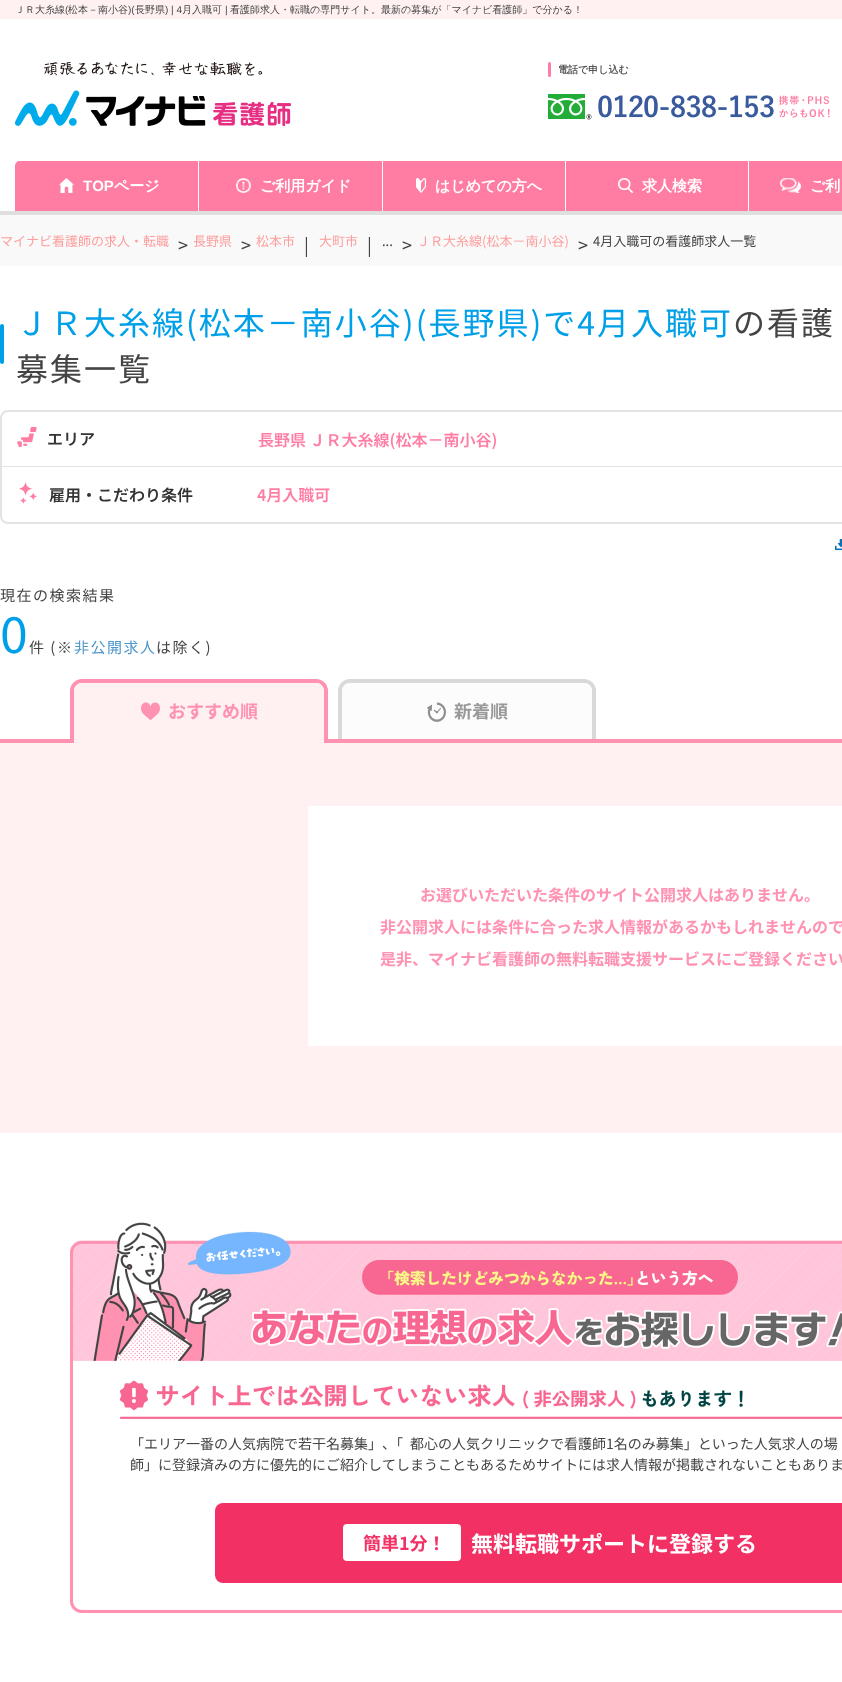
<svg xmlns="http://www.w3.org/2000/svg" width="842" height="1682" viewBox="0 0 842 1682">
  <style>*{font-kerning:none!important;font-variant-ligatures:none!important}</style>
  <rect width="100%" height="100%" fill="#ffffff"/>
  <rect x="0" y="0" width="842" height="19" fill="#fff1f1"/>
  <text x="15" y="13" font-family="WenQuanYi Zen Hei" font-size="10" font-weight="500" fill="#444444">ＪＲ大糸線</text>
  <text x="65" y="13" font-family="Liberation Sans" font-size="10" fill="#444444">(</text>
  <text x="68" y="13" font-family="WenQuanYi Zen Hei" font-size="10" font-weight="500" fill="#444444">松本－南小谷</text>
  <text x="128" y="13" font-family="Liberation Sans" font-size="10" fill="#444444">)(</text>
  <text x="135" y="13" font-family="WenQuanYi Zen Hei" font-size="10" font-weight="500" fill="#444444">長野県</text>
  <text x="165" y="13" font-family="Liberation Sans" font-size="10" fill="#444444">) | 4</text>
  <text x="182" y="13" font-family="WenQuanYi Zen Hei" font-size="10" font-weight="500" fill="#444444">月入職可</text>
  <text x="225" y="13" font-family="Liberation Sans" font-size="10" fill="#444444">|</text>
  <text x="230" y="13" font-family="WenQuanYi Zen Hei" font-size="10" font-weight="500" fill="#444444">看護師求人・転職の専門サイト。最新の募集が「マイナビ看護師」で分かる！</text>
  <image x="15" y="62" width="276" height="64" href="img1.png"/>
  <rect x="548" y="62" width="3" height="15" rx="1.5" fill="#ff7da3"/>
  <text x="558" y="73" font-family="WenQuanYi Zen Hei" font-size="10" font-weight="bold" fill="#555555">電話で申し込む</text>
  <image x="548" y="94" width="282" height="26" href="img2.png"/>
  <path d="M20 161H198V211H15V166C15 163 17 161 20 161Z" fill="#ff7da3"/>
  <image x="59" y="178" width="15" height="15" href="img3.png"/>
  <text x="83" y="191" font-family="Liberation Sans" font-size="15" font-weight="bold" fill="#ffffff">TOP</text>
  <text x="114" y="191" font-family="WenQuanYi Zen Hei" font-size="15" font-weight="bold" fill="#ffffff">ページ</text>
  <rect x="199" y="161" width="183" height="50" fill="#ff7da3"/>
  <image x="236" y="178" width="15" height="15" href="img4.png"/>
  <text x="260" y="191" font-family="WenQuanYi Zen Hei" font-size="15" font-weight="bold" fill="#ffffff">ご利用ガイド</text>
  <rect x="383" y="161" width="182" height="50" fill="#ff7da3"/>
  <image x="416" y="178" width="10" height="15" href="img5.png"/>
  <text x="435" y="191" font-family="WenQuanYi Zen Hei" font-size="15" font-weight="bold" fill="#ffffff">はじめての方へ</text>
  <rect x="566" y="161" width="182" height="50" fill="#ff7da3"/>
  <image x="618" y="178" width="15" height="15" href="img6.png"/>
  <text x="642" y="191" font-family="WenQuanYi Zen Hei" font-size="15" font-weight="bold" fill="#ffffff">求人検索</text>
  <rect x="749" y="161" width="93" height="50" fill="#ff7da3"/>
  <image x="780" y="178" width="21" height="15" href="img7.png"/>
  <text x="810" y="191" font-family="WenQuanYi Zen Hei" font-size="15" font-weight="bold" fill="#ffffff">ご利</text>
  <rect x="0" y="211" width="842" height="4" fill="#dfdfdf"/>
  <rect x="0" y="215" width="842" height="51" fill="#f9f9f9"/>
  <text x="0" y="246" font-family="Noto Sans JP" font-size="13" fill="#fe9d9d">マイナビ看護師の求人・転職</text>
  <text x="178" y="252" font-family="Noto Sans JP" font-size="18" fill="#444444">&gt;</text>
  <text x="193" y="246" font-family="Noto Sans JP" font-size="13" fill="#fe9d9d">長野県</text>
  <text x="241" y="252" font-family="Noto Sans JP" font-size="18" fill="#444444">&gt;</text>
  <text x="256" y="246" font-family="Noto Sans JP" font-size="13" fill="#fe9d9d">松本市</text>
  <text x="304" y="252" font-family="Noto Sans JP" font-size="18" fill="#444444">|</text>
  <text x="319" y="246" font-family="Noto Sans JP" font-size="13" fill="#fe9d9d">大町市</text>
  <text x="367" y="252" font-family="Noto Sans JP" font-size="18" fill="#444444">|</text>
  <text x="382" y="246" font-family="Noto Sans JP" font-size="13" fill="#444444">...</text>
  <text x="402" y="252" font-family="Noto Sans JP" font-size="18" fill="#444444">&gt;</text>
  <text x="417" y="246" font-family="Noto Sans JP" font-size="13" fill="#fe9d9d">ＪＲ大糸線(松本－南小谷)</text>
  <text x="578" y="252" font-family="Noto Sans JP" font-size="18" fill="#444444">&gt;</text>
  <text x="593" y="246" font-family="Noto Sans JP" font-size="13" fill="#444444">4月入職可の看護師求人一覧</text>
  <rect x="0" y="324" width="4" height="40" rx="2" fill="#00a0e9"/>
  <text x="16" y="335" font-family="Noto Sans JP" font-size="32" letter-spacing="2" fill="#00a0e9">ＪＲ大糸線(松本－南小谷)(長野県)で4月入職可</text>
  <text x="733" y="335" font-family="Noto Sans JP" font-size="32" letter-spacing="2" fill="#444444">の看護</text>
  <text x="16" y="381" font-family="Noto Sans JP" font-size="32" letter-spacing="2" fill="#444444">募集一覧</text>
  <rect x="1" y="411" width="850" height="112" rx="7" fill="none" stroke="#e3e3e3" stroke-width="2"/>
  <rect x="2" y="466" width="840" height="1" fill="#e3e3e3"/>
  <image x="17" y="427" width="20" height="20" href="img8.png"/>
  <text x="47" y="445" font-family="Noto Sans JP" font-size="16" font-weight="600" fill="#333333">エリア</text>
  <text x="258" y="446" font-family="Noto Sans JP" font-size="16" font-weight="600" fill="#ff7da3">長野県 ＪＲ大糸線(松本－南小谷)</text>
  <image x="19" y="482" width="18" height="22" href="img9.png"/>
  <text x="49" y="501" font-family="Noto Sans JP" font-size="16" font-weight="600" fill="#333333">雇用・こだわり条件</text>
  <text x="257" y="501" font-family="Noto Sans JP" font-size="16" font-weight="600" fill="#ff7da3">4月入職可</text>
  <image x="835" y="539" width="7" height="12" href="img10.png"/>
  <text x="0" y="601" font-family="Noto Sans JP" font-size="15" letter-spacing="1.5" fill="#444444">現在の検索結果</text>
  <text x="0" y="653" font-family="Noto Sans JP" font-size="50" letter-spacing="1.5" fill="#00a0e9">0</text>
  <text x="29" y="653" font-family="Noto Sans JP" font-size="15" letter-spacing="1.5" fill="#444444">件 (※</text>
  <text x="74" y="653" font-family="Noto Sans JP" font-size="15" letter-spacing="1.5" fill="#4b96ca">非公開求人</text>
  <text x="156" y="653" font-family="Noto Sans JP" font-size="15" letter-spacing="1.5" fill="#444444">は除く)</text>
  <rect x="0" y="743" width="842" height="390" fill="#fff1f1"/>
  <path d="M350 681H584C589.5 681 594 685.5 594 691V741H340V691C340 685.5 344.5 681 350 681Z" fill="none" stroke="#d9d9d9" stroke-width="4"/>
  <rect x="0" y="739" width="842" height="4" fill="#ff91b1"/>
  <path d="M82 681H316C321.5 681 326 685.5 326 691V741H72V691C72 685.5 76.5 681 82 681Z" fill="none" stroke="#ff91b1" stroke-width="4"/>
  <path d="M82 683H316C320.5 683 324 686.5 324 691V739H74V691C74 686.5 77.5 683 82 683Z" fill="#fff1f1"/>
  <image x="141" y="702" width="19" height="19" href="img11.png"/>
  <text x="168" y="718" font-family="Noto Sans JP" font-size="18" font-weight="bold" fill="#ff91b1">おすすめ順</text>
  <rect x="74" y="739" width="250" height="4" fill="#fff1f1"/>
  <path d="M350 683H584C588.5 683 592 686.5 592 691V739H342V691C342 686.5 345.5 683 350 683Z" fill="#fcfcfc"/>
  <image x="427" y="702" width="19" height="20" href="img12.png"/>
  <text x="454" y="718" font-family="Noto Sans JP" font-size="18" font-weight="bold" fill="#999999">新着順</text>
  <rect x="308" y="806" width="534" height="240" fill="#ffffff"/>
  <text x="420" y="901" font-family="Noto Sans JP" font-size="16" font-weight="bold" fill="#ff91b1">お選びいただいた条件のサイト公開求人はありません。</text>
  <text x="380" y="933" font-family="Noto Sans JP" font-size="16" font-weight="bold" fill="#ff91b1">非公開求人には条件に合った求人情報があるかもしれませんので</text>
  <text x="380" y="965" font-family="Noto Sans JP" font-size="16" font-weight="bold" fill="#ff91b1">是非、マイナビ看護師の無料転職支援サービスにご登録ください</text>
  <image x="70" y="1222" width="772" height="391" href="img13.png"/>
  <text x="130" y="1449" font-family="Noto Sans JP" font-size="14" fill="#444444">「エリア一番の人気病院で若干名募集」</text>
  <text x="382" y="1449" font-family="Noto Sans JP" font-size="14" fill="#444444">、「</text>
  <text x="410" y="1449" font-family="Noto Sans JP" font-size="14" fill="#444444">都心の人気クリニックで看護師1名のみ募集」といった人気求人の場</text>
  <text x="130" y="1470" font-family="Noto Sans JP" font-size="14" fill="#444444">師」に登録済みの方に優先的にご紹介してしまうこともあるためサイトには求人情報が掲載されないこともありま</text>
  <rect x="215" y="1503" width="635" height="80" rx="8" fill="#f23064"/>
  <rect x="343" y="1524" width="118" height="37" rx="4" fill="#ffffff"/>
  <text x="363" y="1550" font-family="Noto Sans JP" font-size="18" font-weight="bold" fill="#f23064">簡単1分！</text>
  <text x="471" y="1552" font-family="Noto Sans JP" font-size="22" font-weight="bold" fill="#ffffff">無料転職サポートに登録する</text>
</svg>
